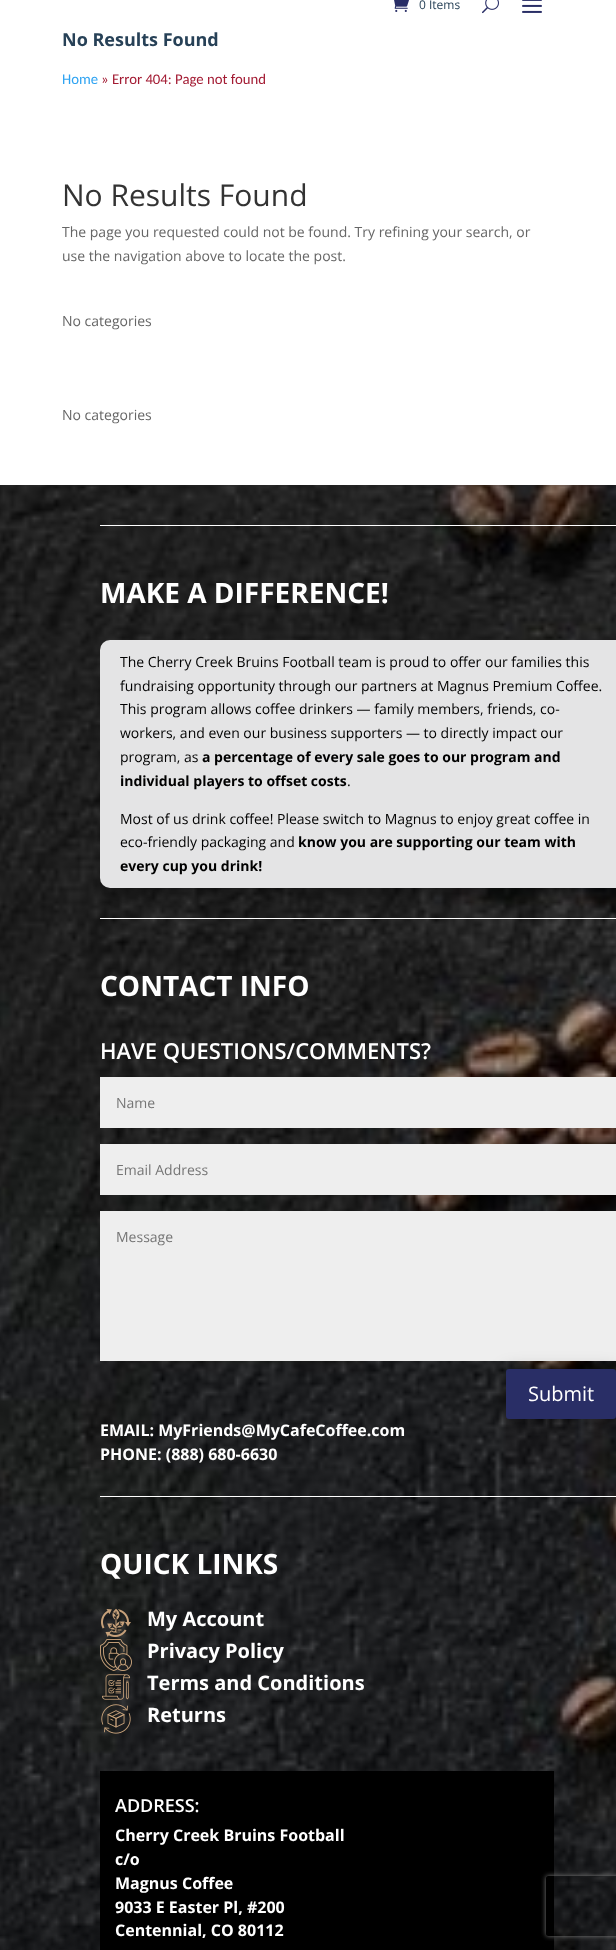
<svg xmlns="http://www.w3.org/2000/svg" width="616" height="1950" viewBox="0 0 616 1950">
  <defs>
    <filter id="blur1" x="-50%" y="-200%" width="200%" height="500%"><feGaussianBlur stdDeviation="9"/></filter>
    <clipPath id="clip1"><path d="M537 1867H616V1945H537ZM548 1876H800C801 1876 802 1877 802 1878V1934C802 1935 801 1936 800 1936H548C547 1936 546 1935 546 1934V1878C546 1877 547 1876 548 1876Z" clip-rule="evenodd"/></clipPath>
    <filter id="blur2" x="-50%" y="-200%" width="200%" height="500%"><feGaussianBlur stdDeviation="2.5"/></filter>
  </defs>
  <rect width="100%" height="100%" fill="#ffffff"/>
  <image x="394" y="0" width="15" height="12" href="img1.png"/>
  <text x="419" y="9" font-family="Open Sans" font-size="12" fill="#274157">0 Items</text>
  <image x="482" y="0" width="17" height="14" href="img2.png"/>
  <image x="522" y="0" width="20" height="13" href="img3.png"/>
  <text x="62" y="46" font-family="Open Sans" font-size="18" font-weight="bold" fill="#274157">No Results Found</text>
  <text x="62" y="84" font-family="Carlito" font-size="14.75" fill="#2ea3f2">Home</text>
  <text x="101" y="84" font-family="Carlito" font-size="14.75" fill="#a31b33">» Error 404: Page not found</text>
  <text x="62" y="206" font-family="Open Sans" font-size="30" fill="#333333">No Results Found</text>
  <text x="62" y="237" font-family="Open Sans" font-size="14" fill="#666666">The page you requested could not be found. Try refining your search, or</text>
  <text x="62" y="261" font-family="Open Sans" font-size="14" fill="#666666">use the navigation above to locate the post.</text>
  <text x="62" y="326" font-family="Open Sans" font-size="14" fill="#666666">No categories</text>
  <text x="62" y="420" font-family="Open Sans" font-size="14" fill="#666666">No categories</text>
  <image x="0" y="485" width="616" height="1465" href="img4.png"/>
  <rect x="100" y="525" width="516" height="1" fill="#ffffff"/>
  <text x="100" y="603" font-family="Open Sans" font-size="28" font-weight="bold" fill="#ffffff">MAKE A DIFFERENCE!</text>
  <rect x="106" y="658" width="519" height="236" rx="4" fill="#000000" fill-opacity="0.3" filter="url(#blur1)"/>
  <rect x="100" y="640" width="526" height="248" rx="10" fill="#e4e4e5"/>
  <text x="120" y="667" font-family="Open Sans" font-size="14" fill="#000000">The Cherry Creek Bruins Football team is proud to offer our families this</text>
  <text x="120" y="691" font-family="Open Sans" font-size="14" fill="#000000">fundraising opportunity through our partners at Magnus Premium Coffee.</text>
  <text x="120" y="714" font-family="Open Sans" font-size="14" fill="#000000">This program allows coffee drinkers — family members, friends, co-</text>
  <text x="120" y="738" font-family="Open Sans" font-size="14" fill="#000000">workers, and even our business supporters — to directly impact our</text>
  <text x="120" y="762" font-family="Open Sans" font-size="14" fill="#000000">program, as</text>
  <text x="202" y="762" font-family="Open Sans" font-size="14" font-weight="bold" fill="#000000">a percentage of every sale goes to our program and</text>
  <text x="120" y="786" font-family="Open Sans" font-size="14" font-weight="bold" fill="#000000">individual players to offset costs</text>
  <text x="347" y="786" font-family="Open Sans" font-size="14" fill="#000000">.</text>
  <text x="120" y="824" font-family="Open Sans" font-size="14" fill="#000000">Most of us drink coffee! Please switch to Magnus to enjoy great coffee in</text>
  <text x="120" y="847" font-family="Open Sans" font-size="14" fill="#000000">eco-friendly packaging and</text>
  <text x="298" y="847" font-family="Open Sans" font-size="14" font-weight="bold" fill="#000000">know you are supporting our team with</text>
  <text x="120" y="871" font-family="Open Sans" font-size="14" font-weight="bold" fill="#000000">every cup you drink!</text>
  <rect x="100" y="918" width="516" height="1" fill="#ffffff"/>
  <text x="100" y="996" font-family="Open Sans" font-size="28" font-weight="bold" fill="#ffffff">CONTACT INFO</text>
  <text x="100" y="1059" font-family="Open Sans" font-size="22" font-weight="600" fill="#ffffff">HAVE QUESTIONS/COMMENTS?</text>
  <rect x="100" y="1077" width="516" height="51" fill="#eeeeee"/>
  <text x="116" y="1108" font-family="Open Sans" font-size="14" fill="#757575">Name</text>
  <rect x="100" y="1144" width="516" height="51" fill="#eeeeee"/>
  <text x="116" y="1175" font-family="Open Sans" font-size="14" fill="#757575">Email Address</text>
  <rect x="100" y="1211" width="516" height="150" fill="#eeeeee"/>
  <text x="116" y="1242" font-family="Open Sans" font-size="14" fill="#757575">Message</text>
  <rect x="506" y="1371" width="110" height="50" rx="3" fill="#000000" fill-opacity="0.3" filter="url(#blur1)"/>
  <rect x="507" y="1370" width="108" height="48" rx="2" fill="#292e66" stroke="#292e66" stroke-width="2"/>
  <text x="528" y="1401" font-family="Open Sans" font-size="20" fill="#ffffff">Submit</text>
  <text x="100" y="1436" font-family="Open Sans" font-size="16" font-weight="bold" fill="#ffffff">EMAIL: MyFriends@MyCafeCoffee.com</text>
  <text x="100" y="1460" font-family="Open Sans" font-size="16" font-weight="bold" fill="#ffffff">PHONE: (888) 680-6630</text>
  <rect x="100" y="1496" width="516" height="1" fill="#ffffff"/>
  <text x="100" y="1574" font-family="Open Sans" font-size="28" font-weight="bold" fill="#ffffff">QUICK LINKS</text>
  <image x="101" y="1608" width="30" height="29" href="img5.png"/>
  <text x="147" y="1626" font-family="Open Sans" font-size="20" font-weight="bold" fill="#ffffff">My Account</text>
  <image x="100" y="1639" width="32" height="32" href="img6.png"/>
  <text x="147" y="1658" font-family="Open Sans" font-size="20" font-weight="bold" fill="#ffffff">Privacy Policy</text>
  <image x="102" y="1674" width="29" height="26" href="img7.png"/>
  <text x="147" y="1690" font-family="Open Sans" font-size="20" font-weight="bold" fill="#ffffff">Terms and Conditions</text>
  <image x="101" y="1704" width="30" height="30" href="img8.png"/>
  <text x="147" y="1722" font-family="Open Sans" font-size="20" font-weight="bold" fill="#ffffff">Returns</text>
  <rect x="100" y="1771" width="454" height="179" fill="#000000"/>
  <text x="115" y="1812" font-family="Open Sans" font-size="18" font-weight="600" fill="#ffffff">ADDRESS:</text>
  <text x="115" y="1841" font-family="Open Sans" font-size="16" font-weight="bold" fill="#ffffff">Cherry Creek Bruins Football</text>
  <text x="115" y="1865" font-family="Open Sans" font-size="16" font-weight="bold" fill="#ffffff">c/o</text>
  <text x="115" y="1889" font-family="Open Sans" font-size="16" font-weight="bold" fill="#ffffff">Magnus Coffee</text>
  <text x="115" y="1913" font-family="Open Sans" font-size="16" font-weight="bold" fill="#ffffff">9033 E Easter Pl, #200</text>
  <text x="115" y="1936" font-family="Open Sans" font-size="16" font-weight="bold" fill="#ffffff">Centennial, CO 80112</text>
  <g clip-path="url(#clip1)">
    <rect x="546" y="1876" width="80" height="60" rx="2" fill="#808080" filter="url(#blur2)"/>
  </g>
</svg>
